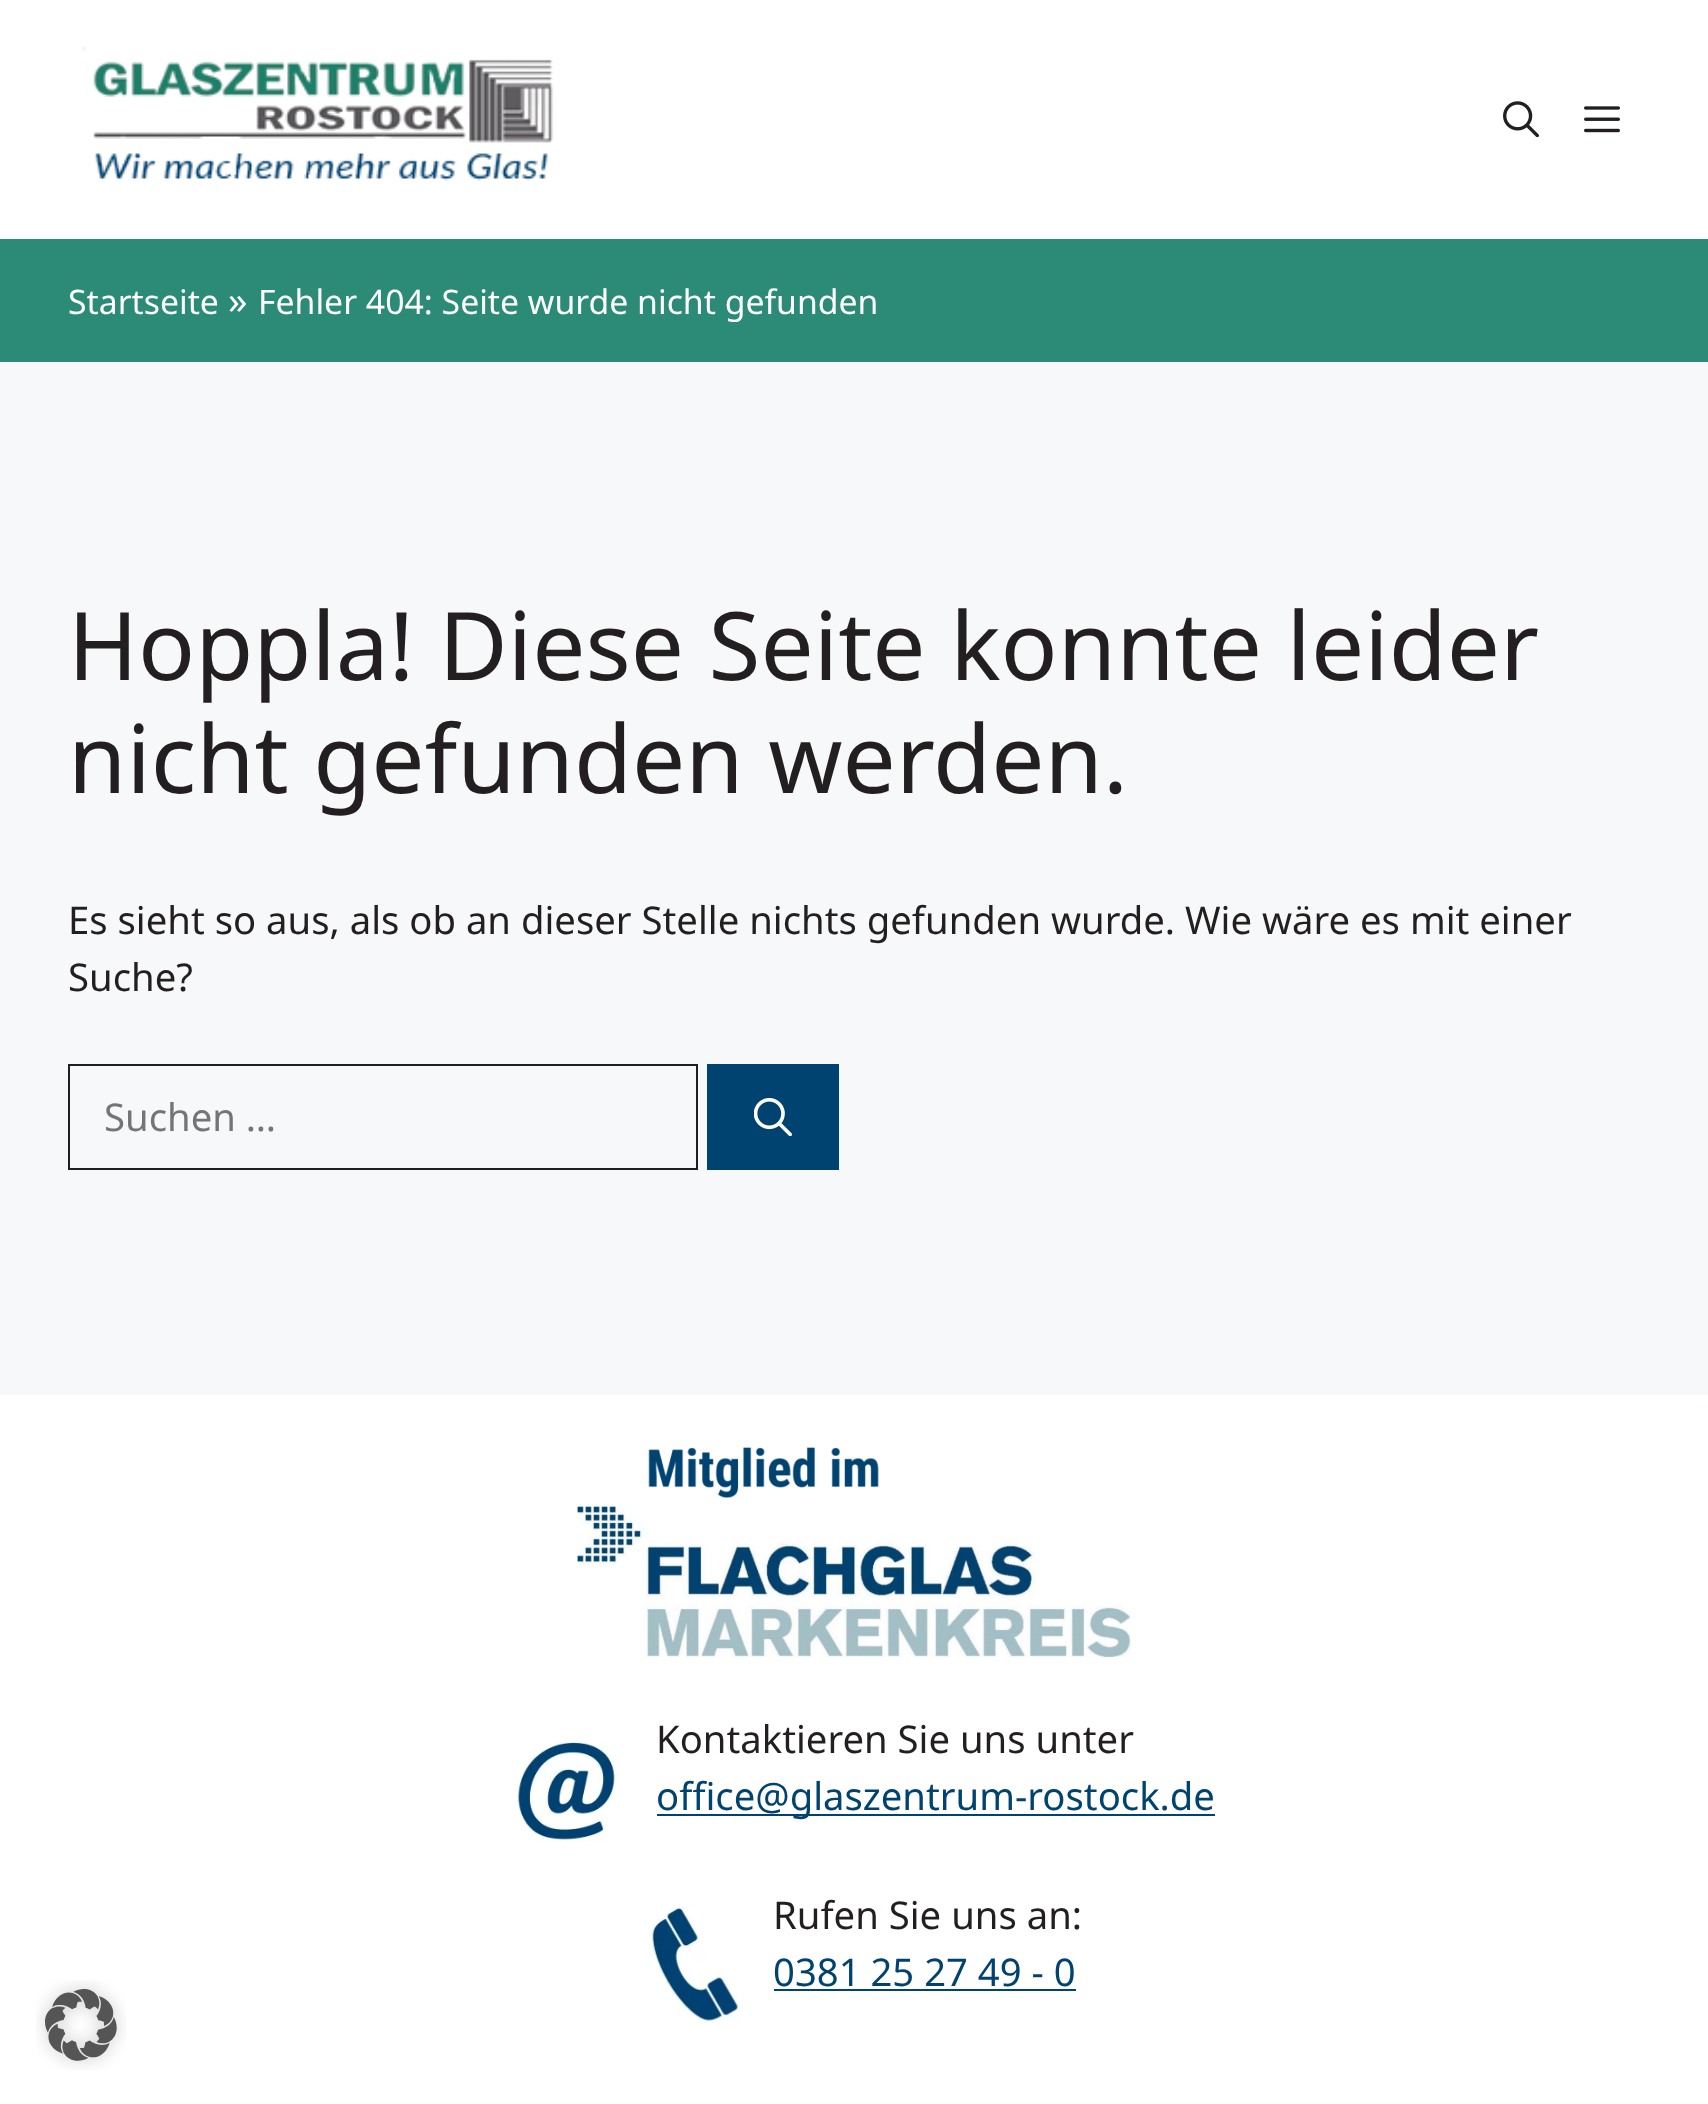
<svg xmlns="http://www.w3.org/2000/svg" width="1708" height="2104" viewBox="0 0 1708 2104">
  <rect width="100%" height="100%" fill="#f7f8f9"/>
  <rect x="0" y="0" width="1708" height="239" fill="#ffffff"/>
  <image x="82" y="46" width="472" height="135" href="img1.png"/>
  <image x="1503" y="101" width="36" height="36" href="img2.png"/>
  <image x="1584" y="106" width="36" height="27" href="img3.png"/>
  <rect x="0" y="239" width="1708" height="123" fill="#2c8b77"/>
  <text x="68" y="314" font-family="Noto Sans" font-size="33.75" fill="#ffffff">Startseite</text>
  <text x="228" y="314" font-family="Noto Sans" font-size="38.25" fill="#ffffff">»</text>
  <text x="258" y="314" font-family="Noto Sans" font-size="33.75" fill="#ffffff">Fehler 404: Seite wurde nicht gefunden</text>
  <text x="68" y="680" font-family="Noto Sans" font-size="94.5" fill="#231f20">Hoppla! Diese Seite konnte leider</text>
  <text x="68" y="793" font-family="Noto Sans" font-size="94.5" fill="#231f20">nicht gefunden werden.</text>
  <text x="68" y="934" font-family="Noto Sans" font-size="38.25" fill="#231f20">Es sieht so aus, als ob an dieser Stelle nichts gefunden wurde. Wie wäre es mit einer</text>
  <text x="68" y="991" font-family="Noto Sans" font-size="38.25" fill="#231f20">Suche?</text>
  <rect x="69" y="1065" width="628" height="104" fill="none" stroke="#231f20" stroke-width="2"/>
  <text x="104" y="1131" font-family="Noto Sans" font-size="38.25" fill="#757575">Suchen …</text>
  <rect x="707" y="1064" width="132" height="106" fill="#004371"/>
  <image x="754" y="1098" width="38" height="38" href="img4.png"/>
  <rect x="0" y="1395" width="1708" height="709" fill="#ffffff"/>
  <image x="577" y="1447" width="554" height="211" href="img5.png"/>
  <image x="516" y="1741" width="101" height="101" href="img6.png"/>
  <text x="656" y="1753" font-family="Noto Sans" font-size="38.25" fill="#231f20">Kontaktieren Sie uns unter</text>
  <rect x="657" y="1814" width="558" height="2" fill="#004371"/>
  <text x="656" y="1810" font-family="Noto Sans" font-size="38.25" fill="#004371">office@glaszentrum-rostock.de</text>
  <image x="651" y="1907" width="88" height="119" href="img7.png"/>
  <text x="773" y="1929" font-family="Noto Sans" font-size="38.25" fill="#231f20">Rufen Sie uns an:</text>
  <text x="773" y="1986" font-family="Noto Sans" font-size="38.25" fill="#004371">0381 25 27 49 - 0</text>
  <rect x="774" y="1989" width="302" height="2" fill="#004371"/>
  <image x="36" y="1980" width="90" height="90" href="img8.png"/>
</svg>
